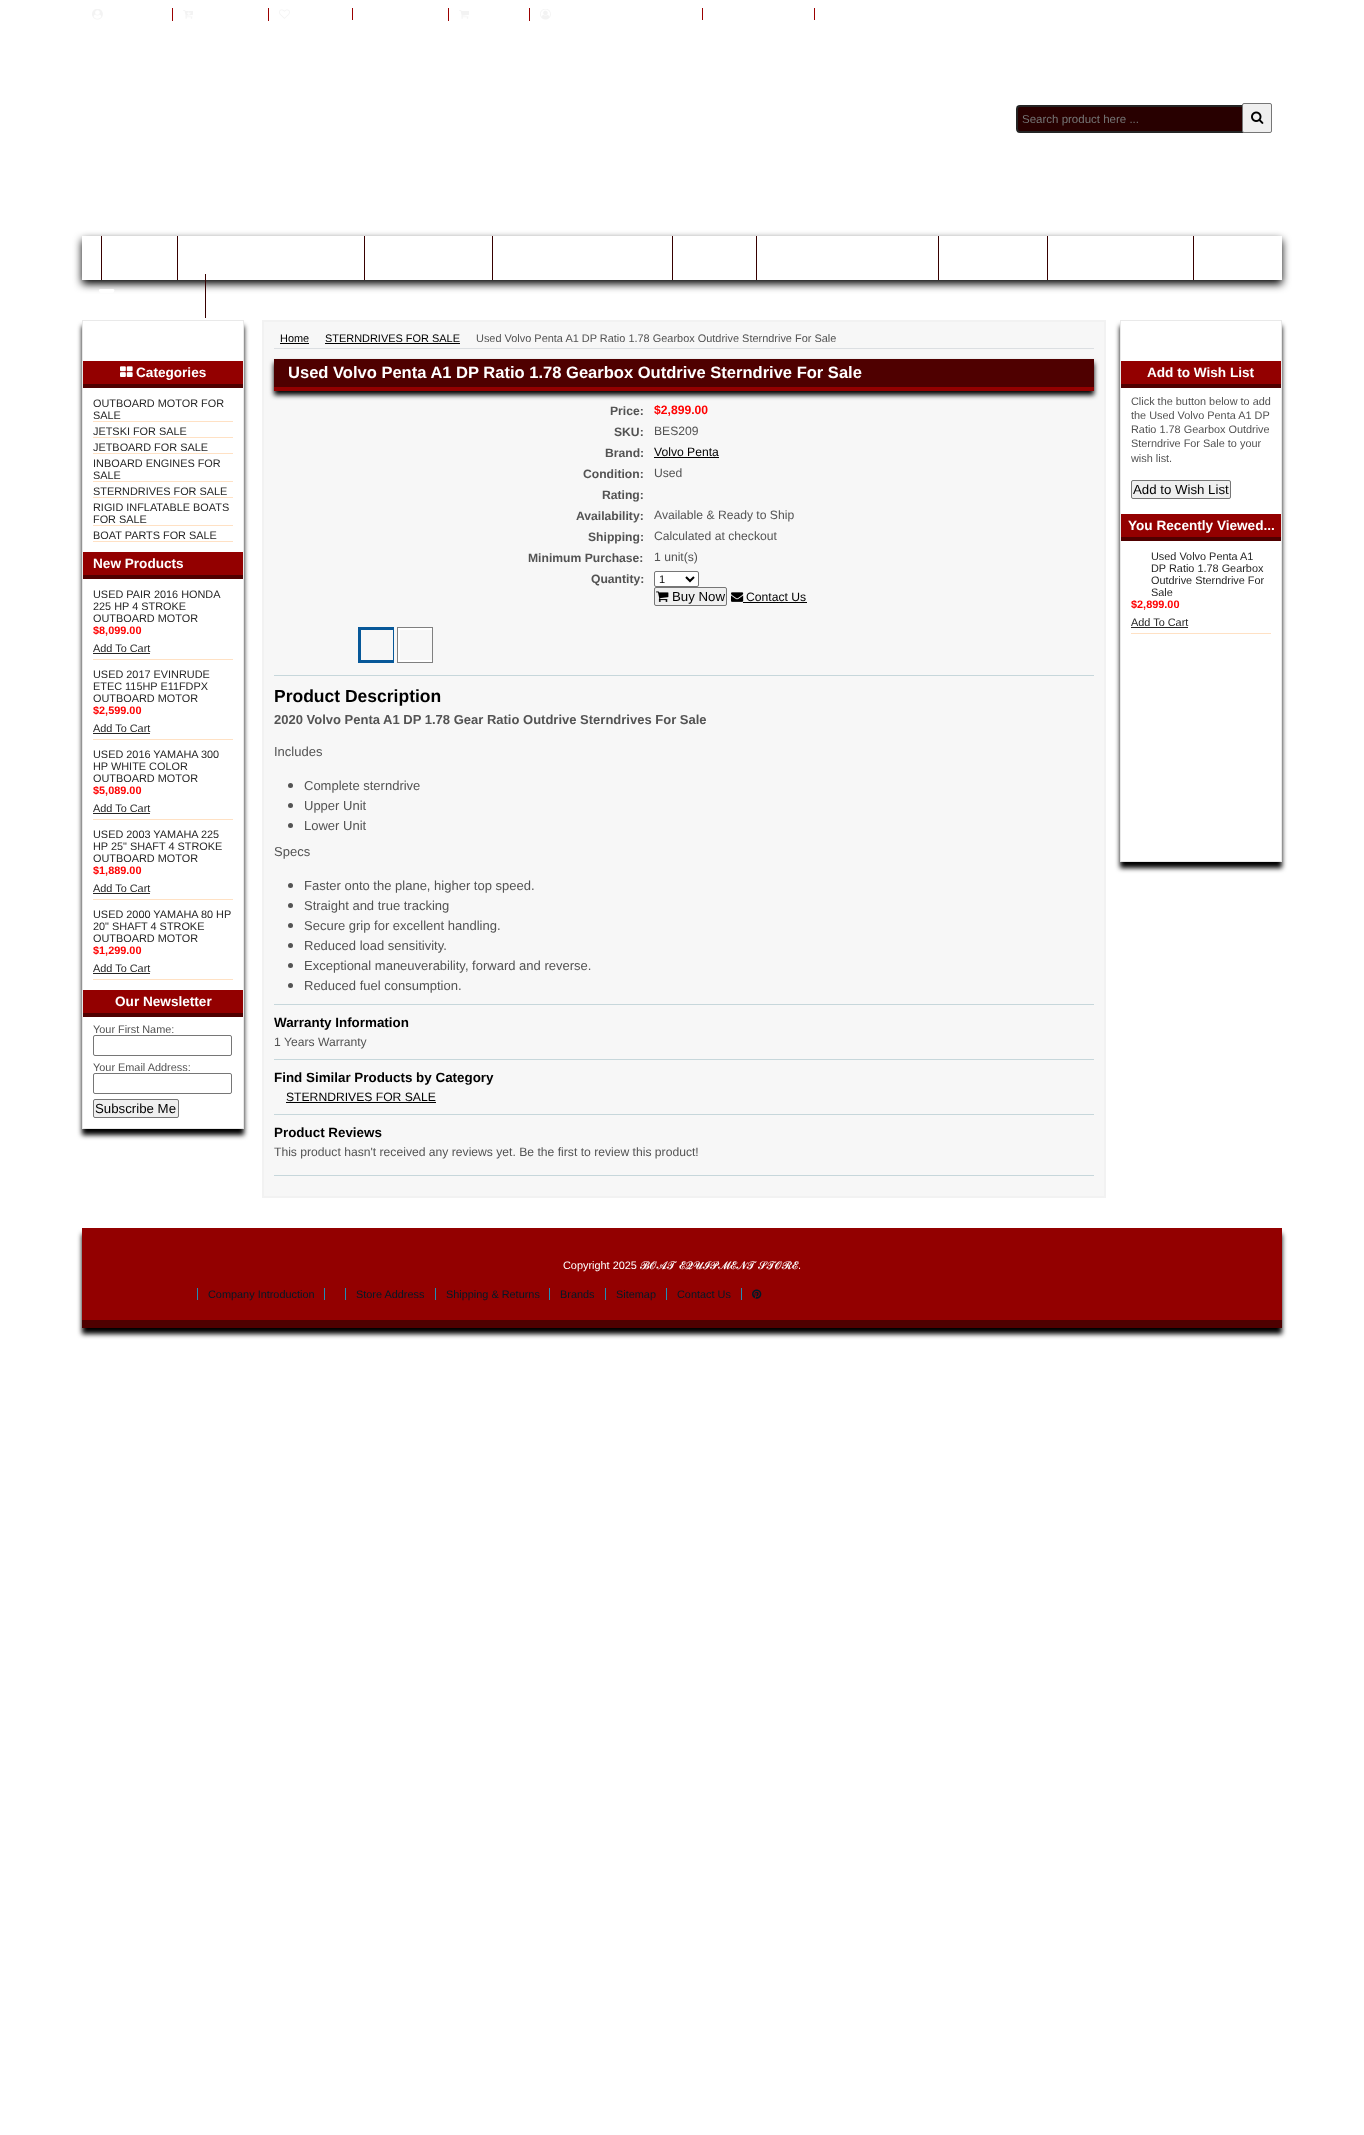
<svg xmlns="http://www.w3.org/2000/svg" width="1364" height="2135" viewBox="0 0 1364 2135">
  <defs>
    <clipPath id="clip1"><path d="M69 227H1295V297H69ZM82 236H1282V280H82Z" clip-rule="evenodd"/></clipPath>
    <filter id="blur1" x="-50%" y="-200%" width="200%" height="500%"><feGaussianBlur stdDeviation="4"/></filter>
    <clipPath id="clip2"><path d="M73 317H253V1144H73ZM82 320H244V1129H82Z" clip-rule="evenodd"/></clipPath>
    <filter id="blur2" x="-50%" y="-200%" width="200%" height="500%"><feGaussianBlur stdDeviation="2.5"/></filter>
    <clipPath id="clip3"><rect x="359" y="628" width="34" height="34"/></clipPath>
    <clipPath id="clip4"><rect x="398" y="628" width="34" height="34"/></clipPath>
    <clipPath id="clip5"><path d="M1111 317H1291V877H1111ZM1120 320H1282V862H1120Z" clip-rule="evenodd"/></clipPath>
  </defs>
  <rect width="100%" height="100%" fill="#ffffff"/>
  <image x="92" y="9" width="11" height="11" href="img1.png"/>
  <rect x="172" y="8" width="1" height="13" fill="#9b0000"/>
  <image x="183" y="10" width="10" height="9" href="img2.png"/>
  <rect x="268" y="8" width="1" height="13" fill="#9b0000"/>
  <image x="279" y="9" width="11" height="10" href="img3.png"/>
  <rect x="352" y="8" width="1" height="12" fill="#9b0000"/>
  <rect x="448" y="8" width="1" height="13" fill="#9b0000"/>
  <image x="459" y="10" width="10" height="9" href="img4.png"/>
  <rect x="529" y="8" width="1" height="13" fill="#9b0000"/>
  <image x="540" y="9" width="11" height="11" href="img5.png"/>
  <rect x="702" y="8" width="1" height="12" fill="#9b0000"/>
  <rect x="814" y="8" width="1" height="12" fill="#9b0000"/>
  <rect x="1017" y="106" width="250" height="26" rx="3" fill="#280000" stroke="#242424" stroke-width="2"/>
  <text x="1022" y="123" font-family="Liberation Sans" font-size="11.5" fill="#757575">Search product here ...</text>
  <rect x="1242.5" y="103.5" width="29" height="29" rx="1.5" fill="#efefef" stroke="#767676"/>
  <image x="1251" y="111" width="13" height="13" href="img6.png"/>
  <g clip-path="url(#clip1)">
    <rect x="82" y="240" width="1200" height="44" fill="#000000" filter="url(#blur1)"/>
  </g>
  <rect x="177" y="236" width="1" height="44" fill="#370000"/>
  <rect x="101" y="236" width="1" height="44" fill="#370000"/>
  <rect x="364" y="236" width="1" height="44" fill="#370000"/>
  <rect x="492" y="236" width="1" height="44" fill="#370000"/>
  <rect x="672" y="236" width="1" height="44" fill="#370000"/>
  <rect x="756" y="236" width="1" height="44" fill="#370000"/>
  <rect x="938" y="236" width="1" height="44" fill="#370000"/>
  <rect x="1047" y="236" width="1" height="44" fill="#370000"/>
  <rect x="1193" y="236" width="1" height="44" fill="#370000"/>
  <rect x="205" y="274" width="1" height="44" fill="#370000"/>
  <image x="99" y="289" width="16" height="4" href="img7.png"/>
  <g clip-path="url(#clip2)">
    <rect x="82" y="326" width="162" height="809" fill="#000000" filter="url(#blur2)"/>
  </g>
  <rect x="82.5" y="320.5" width="161" height="808" fill="none" stroke="#e9e9e9"/>
  <rect x="83" y="361" width="160" height="23" fill="#930000"/>
  <rect x="83" y="384" width="160" height="4" fill="#4f0000"/>
  <image x="120" y="366" width="13" height="11" href="img8.png"/>
  <text x="136" y="377" font-family="Liberation Sans" font-size="13.6" font-weight="bold" fill="#ffffff">Categories</text>
  <rect x="93" y="421" width="140" height="1" fill="#ffe1c4"/>
  <text x="93" y="407" font-family="Liberation Sans" font-size="10.9" fill="#272727">OUTBOARD MOTOR FOR</text>
  <text x="93" y="419" font-family="Liberation Sans" font-size="10.9" fill="#272727">SALE</text>
  <rect x="93" y="437" width="140" height="1" fill="#ffe1c4"/>
  <text x="93" y="435" font-family="Liberation Sans" font-size="10.9" fill="#272727">JETSKI FOR SALE</text>
  <rect x="93" y="453" width="140" height="1" fill="#ffe1c4"/>
  <text x="93" y="451" font-family="Liberation Sans" font-size="10.9" fill="#272727">JETBOARD FOR SALE</text>
  <rect x="93" y="481" width="140" height="1" fill="#ffe1c4"/>
  <text x="93" y="467" font-family="Liberation Sans" font-size="10.9" fill="#272727">INBOARD ENGINES FOR</text>
  <text x="93" y="479" font-family="Liberation Sans" font-size="10.9" fill="#272727">SALE</text>
  <rect x="93" y="497" width="140" height="1" fill="#ffe1c4"/>
  <text x="93" y="495" font-family="Liberation Sans" font-size="10.9" fill="#272727">STERNDRIVES FOR SALE</text>
  <rect x="93" y="525" width="140" height="1" fill="#ffe1c4"/>
  <text x="93" y="511" font-family="Liberation Sans" font-size="10.9" fill="#272727">RIGID INFLATABLE BOATS</text>
  <text x="93" y="523" font-family="Liberation Sans" font-size="10.9" fill="#272727">FOR SALE</text>
  <rect x="93" y="541" width="140" height="1" fill="#ffe1c4"/>
  <text x="93" y="539" font-family="Liberation Sans" font-size="10.9" fill="#272727">BOAT PARTS FOR SALE</text>
  <rect x="83" y="552" width="160" height="23" fill="#930000"/>
  <rect x="83" y="575" width="160" height="4" fill="#4f0000"/>
  <text x="93" y="568" font-family="Liberation Sans" font-size="13.6" font-weight="bold" fill="#ffffff">New Products</text>
  <rect x="93" y="659" width="140" height="1" fill="#ffe1c4"/>
  <text x="93" y="598" font-family="Liberation Sans" font-size="10.9" fill="#272727">USED PAIR 2016 HONDA</text>
  <text x="93" y="610" font-family="Liberation Sans" font-size="10.9" fill="#272727">225 HP 4 STROKE</text>
  <text x="93" y="622" font-family="Liberation Sans" font-size="10.9" fill="#272727">OUTBOARD MOTOR</text>
  <text x="93" y="634" font-family="Liberation Sans" font-size="10.9" font-weight="bold" fill="#ff0000">$8,099.00</text>
  <text x="93" y="652" font-family="Liberation Sans" font-size="10.9" fill="#272727">Add To Cart</text>
  <rect x="93" y="653" width="57" height="1" fill="#252525"/>
  <rect x="93" y="739" width="140" height="1" fill="#ffe1c4"/>
  <text x="93" y="678" font-family="Liberation Sans" font-size="10.9" fill="#272727">USED 2017 EVINRUDE</text>
  <text x="93" y="690" font-family="Liberation Sans" font-size="10.9" fill="#272727">ETEC 115HP E11FDPX</text>
  <text x="93" y="702" font-family="Liberation Sans" font-size="10.9" fill="#272727">OUTBOARD MOTOR</text>
  <text x="93" y="714" font-family="Liberation Sans" font-size="10.9" font-weight="bold" fill="#ff0000">$2,599.00</text>
  <text x="93" y="732" font-family="Liberation Sans" font-size="10.9" fill="#272727">Add To Cart</text>
  <rect x="93" y="733" width="57" height="1" fill="#252525"/>
  <rect x="93" y="819" width="140" height="1" fill="#ffe1c4"/>
  <text x="93" y="758" font-family="Liberation Sans" font-size="10.9" fill="#272727">USED 2016 YAMAHA 300</text>
  <text x="93" y="770" font-family="Liberation Sans" font-size="10.9" fill="#272727">HP WHITE COLOR</text>
  <text x="93" y="782" font-family="Liberation Sans" font-size="10.9" fill="#272727">OUTBOARD MOTOR</text>
  <text x="93" y="794" font-family="Liberation Sans" font-size="10.9" font-weight="bold" fill="#ff0000">$5,089.00</text>
  <text x="93" y="812" font-family="Liberation Sans" font-size="10.9" fill="#272727">Add To Cart</text>
  <rect x="93" y="813" width="57" height="1" fill="#252525"/>
  <rect x="93" y="899" width="140" height="1" fill="#ffe1c4"/>
  <text x="93" y="838" font-family="Liberation Sans" font-size="10.9" fill="#272727">USED 2003 YAMAHA 225</text>
  <text x="93" y="850" font-family="Liberation Sans" font-size="10.9" fill="#272727">HP 25" SHAFT 4 STROKE</text>
  <text x="93" y="862" font-family="Liberation Sans" font-size="10.9" fill="#272727">OUTBOARD MOTOR</text>
  <text x="93" y="874" font-family="Liberation Sans" font-size="10.9" font-weight="bold" fill="#ff0000">$1,889.00</text>
  <text x="93" y="892" font-family="Liberation Sans" font-size="10.9" fill="#272727">Add To Cart</text>
  <rect x="93" y="893" width="57" height="1" fill="#252525"/>
  <rect x="93" y="979" width="140" height="1" fill="#ffe1c4"/>
  <text x="93" y="918" font-family="Liberation Sans" font-size="10.9" fill="#272727">USED 2000 YAMAHA 80 HP</text>
  <text x="93" y="930" font-family="Liberation Sans" font-size="10.9" fill="#272727">20" SHAFT 4 STROKE</text>
  <text x="93" y="942" font-family="Liberation Sans" font-size="10.9" fill="#272727">OUTBOARD MOTOR</text>
  <text x="93" y="954" font-family="Liberation Sans" font-size="10.9" font-weight="bold" fill="#ff0000">$1,299.00</text>
  <text x="93" y="972" font-family="Liberation Sans" font-size="10.9" fill="#272727">Add To Cart</text>
  <rect x="93" y="973" width="57" height="1" fill="#252525"/>
  <rect x="83" y="990" width="160" height="23" fill="#930000"/>
  <rect x="83" y="1013" width="160" height="4" fill="#4f0000"/>
  <text x="115" y="1006" font-family="Liberation Sans" font-size="13.6" font-weight="bold" fill="#ffffff">Our Newsletter</text>
  <text x="93" y="1033" font-family="Liberation Sans" font-size="10.9" fill="#535353">Your First Name:</text>
  <rect x="93.5" y="1035.5" width="138" height="20" rx="1.5" fill="none" stroke="#767676"/>
  <text x="93" y="1071" font-family="Liberation Sans" font-size="10.9" fill="#535353">Your Email Address:</text>
  <rect x="93.5" y="1073.5" width="138" height="20" rx="1.5" fill="none" stroke="#767676"/>
  <rect x="93.5" y="1099.5" width="85" height="18" rx="1.5" fill="#efefef" stroke="#767676"/>
  <text x="95" y="1113" font-family="Liberation Sans" font-size="13.25" fill="#000000">Subscribe Me</text>
  <rect x="263" y="321" width="842" height="876" fill="#f7f7f7" stroke="#f2f2f2" stroke-width="2"/>
  <rect x="274" y="348" width="820" height="1" fill="#dcdfe2"/>
  <text x="280" y="342" font-family="Liberation Sans" font-size="10.95" fill="#000000">Home</text>
  <rect x="280" y="343" width="29" height="1" fill="#000000"/>
  <text x="325" y="342" font-family="Liberation Sans" font-size="10.95" fill="#000000">STERNDRIVES FOR SALE</text>
  <rect x="325" y="343" width="135" height="1" fill="#000000"/>
  <text x="476" y="342" font-family="Liberation Sans" font-size="10.95" fill="#535353">Used Volvo Penta A1 DP Ratio 1.78 Gearbox Outdrive Sterndrive For Sale</text>
  <rect x="274" y="363" width="820" height="32" fill="#000000" filter="url(#blur2)"/>
  <rect x="274" y="359" width="820" height="28" fill="#4f0000"/>
  <rect x="274" y="387" width="820" height="4" fill="#930000"/>
  <text x="288" y="378" font-family="Liberation Sans" font-size="16.55" font-weight="bold" fill="#ffffff">Used Volvo Penta A1 DP Ratio 1.78 Gearbox Outdrive Sterndrive For Sale</text>
  <text x="610" y="415" font-family="Liberation Sans" font-size="12.15" font-weight="bold" fill="#535353">Price:</text>
  <text x="654" y="414" font-family="Liberation Sans" font-size="12.15" font-weight="bold" fill="#ff0000">$2,899.00</text>
  <text x="614" y="436" font-family="Liberation Sans" font-size="12.15" font-weight="bold" fill="#535353">SKU:</text>
  <text x="654" y="435" font-family="Liberation Sans" font-size="12.15" fill="#535353">BES209</text>
  <text x="605" y="457" font-family="Liberation Sans" font-size="12.15" font-weight="bold" fill="#535353">Brand:</text>
  <text x="654" y="456" font-family="Liberation Sans" font-size="12.15" fill="#000000">Volvo Penta</text>
  <rect x="654" y="457" width="65" height="1" fill="#000000"/>
  <text x="583" y="478" font-family="Liberation Sans" font-size="12.15" font-weight="bold" fill="#535353">Condition:</text>
  <text x="654" y="477" font-family="Liberation Sans" font-size="12.15" fill="#535353">Used</text>
  <text x="602" y="499" font-family="Liberation Sans" font-size="12.15" font-weight="bold" fill="#535353">Rating:</text>
  <text x="576" y="520" font-family="Liberation Sans" font-size="12.15" font-weight="bold" fill="#535353">Availability:</text>
  <text x="654" y="519" font-family="Liberation Sans" font-size="12.15" fill="#535353">Available &amp; Ready to Ship</text>
  <text x="588" y="541" font-family="Liberation Sans" font-size="12.15" font-weight="bold" fill="#535353">Shipping:</text>
  <text x="654" y="540" font-family="Liberation Sans" font-size="12.15" fill="#535353">Calculated at checkout</text>
  <text x="528" y="562" font-family="Liberation Sans" font-size="12.15" font-weight="bold" fill="#535353">Minimum Purchase:</text>
  <text x="654" y="561" font-family="Liberation Sans" font-size="12.15" fill="#535353">1 unit(s)</text>
  <text x="591" y="583" font-family="Liberation Sans" font-size="12.15" font-weight="bold" fill="#535353">Quantity:</text>
  <rect x="654.5" y="571.5" width="44" height="15" rx="1.5" fill="#ffffff" stroke="#767676"/>
  <path d="M686 577L690 581L694 577" fill="none" stroke="#000000" stroke-width="2"/>
  <text x="659" y="583" font-family="Liberation Sans" font-size="11" fill="#000000">1</text>
  <rect x="654.5" y="587.5" width="72" height="18" rx="1.5" fill="#efefef" stroke="#767676"/>
  <image x="656" y="591" width="13" height="11" href="img9.png"/>
  <text x="672" y="601" font-family="Liberation Sans" font-size="13.25" fill="#000000">Buy Now</text>
  <image x="731" y="592" width="13" height="10" href="img10.png"/>
  <text x="746" y="601" font-family="Liberation Sans" font-size="12.15" fill="#000000">Contact Us</text>
  <rect x="743" y="602" width="64" height="1" fill="#000000"/>
  <rect x="358.5" y="627.5" width="35" height="35" fill="none" stroke="#075899"/>
  <g clip-path="url(#clip3)">
    <rect x="360" y="629" width="170" height="32" fill="none" stroke="#075899" stroke-width="2"/>
  </g>
  <rect x="397.5" y="627.5" width="35" height="35" fill="none" stroke="#808080"/>
  <g clip-path="url(#clip4)">
    <rect x="399" y="629" width="170" height="32" fill="none" stroke="#ffffff" stroke-width="2"/>
  </g>
  <rect x="274" y="675" width="820" height="1" fill="#c7d7db"/>
  <text x="274" y="702" font-family="Liberation Sans" font-size="17.5" font-weight="bold" fill="#000000">Product Description</text>
  <text x="274" y="724" font-family="Liberation Sans" font-size="13" font-weight="bold" fill="#535353">2020 Volvo Penta A1 DP 1.78 Gear Ratio Outdrive Sterndrives For Sale</text>
  <text x="274" y="756" font-family="Liberation Sans" font-size="13" fill="#535353">Includes</text>
  <circle cx="290.5" cy="785.5" r="2.5" fill="#535353"/>
  <text x="304" y="790" font-family="Liberation Sans" font-size="13" fill="#535353">Complete sterndrive</text>
  <circle cx="290.5" cy="805.5" r="2.5" fill="#535353"/>
  <text x="304" y="810" font-family="Liberation Sans" font-size="13" fill="#535353">Upper Unit</text>
  <circle cx="290.5" cy="825.5" r="2.5" fill="#535353"/>
  <text x="304" y="830" font-family="Liberation Sans" font-size="13" fill="#535353">Lower Unit</text>
  <text x="274" y="856" font-family="Liberation Sans" font-size="13" fill="#535353">Specs</text>
  <circle cx="290.5" cy="885.5" r="2.5" fill="#535353"/>
  <text x="304" y="890" font-family="Liberation Sans" font-size="13" fill="#535353">Faster onto the plane, higher top speed.</text>
  <circle cx="290.5" cy="905.5" r="2.5" fill="#535353"/>
  <text x="304" y="910" font-family="Liberation Sans" font-size="13" fill="#535353">Straight and true tracking</text>
  <circle cx="290.5" cy="925.5" r="2.5" fill="#535353"/>
  <text x="304" y="930" font-family="Liberation Sans" font-size="13" fill="#535353">Secure grip for excellent handling.</text>
  <circle cx="290.5" cy="945.5" r="2.5" fill="#535353"/>
  <text x="304" y="950" font-family="Liberation Sans" font-size="13" fill="#535353">Reduced load sensitivity.</text>
  <circle cx="290.5" cy="965.5" r="2.5" fill="#535353"/>
  <text x="304" y="970" font-family="Liberation Sans" font-size="13" fill="#535353">Exceptional maneuverability, forward and reverse.</text>
  <circle cx="290.5" cy="985.5" r="2.5" fill="#535353"/>
  <text x="304" y="990" font-family="Liberation Sans" font-size="13" fill="#535353">Reduced fuel consumption.</text>
  <rect x="274" y="1004" width="820" height="1" fill="#c7d7db"/>
  <text x="274" y="1027" font-family="Liberation Sans" font-size="13.4" font-weight="bold" fill="#000000">Warranty Information</text>
  <text x="274" y="1046" font-family="Liberation Sans" font-size="12.15" fill="#535353">1 Years Warranty</text>
  <rect x="274" y="1059" width="820" height="1" fill="#c7d7db"/>
  <text x="274" y="1082" font-family="Liberation Sans" font-size="13.4" font-weight="bold" fill="#000000">Find Similar Products by Category</text>
  <text x="286" y="1101" font-family="Liberation Sans" font-size="12.15" fill="#000000">STERNDRIVES FOR SALE</text>
  <rect x="286" y="1102" width="150" height="1" fill="#000000"/>
  <rect x="274" y="1114" width="820" height="1" fill="#c7d7db"/>
  <text x="274" y="1137" font-family="Liberation Sans" font-size="13.4" font-weight="bold" fill="#000000">Product Reviews</text>
  <text x="274" y="1156" font-family="Liberation Sans" font-size="12.15" fill="#535353">This product hasn't received any reviews yet. Be the first to review this product!</text>
  <rect x="274" y="1175" width="820" height="1" fill="#c7d7db"/>
  <g clip-path="url(#clip5)">
    <rect x="1120" y="326" width="162" height="542" fill="#000000" filter="url(#blur2)"/>
  </g>
  <rect x="1120.5" y="320.5" width="161" height="541" fill="none" stroke="#e9e9e9"/>
  <rect x="1121" y="361" width="160" height="23" fill="#930000"/>
  <rect x="1121" y="384" width="160" height="4" fill="#4f0000"/>
  <text x="1147" y="377" font-family="Liberation Sans" font-size="13.6" font-weight="bold" fill="#ffffff">Add to Wish List</text>
  <text x="1131" y="405" font-family="Liberation Sans" font-size="10.9" fill="#535353">Click the button below to add</text>
  <text x="1131" y="419" font-family="Liberation Sans" font-size="10.9" fill="#535353">the Used Volvo Penta A1 DP</text>
  <text x="1131" y="433" font-family="Liberation Sans" font-size="10.9" fill="#535353">Ratio 1.78 Gearbox Outdrive</text>
  <text x="1131" y="447" font-family="Liberation Sans" font-size="10.9" fill="#535353">Sterndrive For Sale to your</text>
  <text x="1131" y="462" font-family="Liberation Sans" font-size="10.9" fill="#535353">wish list.</text>
  <rect x="1131.5" y="480.5" width="99" height="18" rx="1.5" fill="#efefef" stroke="#767676"/>
  <text x="1133" y="494" font-family="Liberation Sans" font-size="13.25" fill="#000000">Add to Wish List</text>
  <rect x="1121" y="514" width="160" height="23" fill="#930000"/>
  <rect x="1121" y="537" width="160" height="4" fill="#4f0000"/>
  <text x="1128" y="530" font-family="Liberation Sans" font-size="13.6" font-weight="bold" fill="#ffffff">You Recently Viewed...</text>
  <rect x="1131" y="633" width="140" height="1" fill="#ffe1c4"/>
  <text x="1151" y="560" font-family="Liberation Sans" font-size="10.9" fill="#272727">Used Volvo Penta A1</text>
  <text x="1151" y="572" font-family="Liberation Sans" font-size="10.9" fill="#272727">DP Ratio 1.78 Gearbox</text>
  <text x="1151" y="584" font-family="Liberation Sans" font-size="10.9" fill="#272727">Outdrive Sterndrive For</text>
  <text x="1151" y="596" font-family="Liberation Sans" font-size="10.9" fill="#272727">Sale</text>
  <text x="1131" y="608" font-family="Liberation Sans" font-size="10.9" font-weight="bold" fill="#ff0000">$2,899.00</text>
  <text x="1131" y="626" font-family="Liberation Sans" font-size="10.9" fill="#272727">Add To Cart</text>
  <rect x="1131" y="627" width="57" height="1" fill="#272727"/>
  <rect x="82" y="1234" width="1200" height="100" fill="#000000" filter="url(#blur2)"/>
  <rect x="82" y="1228" width="1200" height="92" fill="#930000"/>
  <rect x="82" y="1320" width="1200" height="8" fill="#4f0000"/>
  <text x="563" y="1269" font-family="Liberation Sans" font-size="10.9" fill="#ffffff">Copyright 2025</text>
  <text x="640" y="1269" font-family="FreeSerif" font-size="10.9" fill="#ffffff">𝓑𝓞𝓐𝓣</text>
  <text x="679" y="1269" font-family="FreeSerif" font-size="10.9" fill="#ffffff">𝓔𝓠𝓤𝓘𝓟𝓜𝓔𝓝𝓣</text>
  <text x="758" y="1269" font-family="FreeSerif" font-size="10.9" fill="#ffffff">𝓢𝓣𝓞𝓡𝓔</text>
  <text x="798" y="1269" font-family="Liberation Sans" font-size="10.9" fill="#ffffff">.</text>
  <text x="208" y="1298" font-family="Liberation Sans" font-size="10.9" fill="#001927">Company Introduction</text>
  <rect x="197" y="1288" width="1" height="12" fill="#208db5"/>
  <rect x="324" y="1288" width="1" height="12" fill="#208db5"/>
  <text x="356" y="1298" font-family="Liberation Sans" font-size="10.9" fill="#001927">Store Address</text>
  <rect x="345" y="1288" width="1" height="12" fill="#208db5"/>
  <text x="446" y="1298" font-family="Liberation Sans" font-size="10.9" fill="#001927">Shipping &amp; Returns</text>
  <rect x="435" y="1288" width="1" height="12" fill="#208db5"/>
  <text x="560" y="1298" font-family="Liberation Sans" font-size="10.9" fill="#001927">Brands</text>
  <rect x="549" y="1288" width="1" height="12" fill="#208db5"/>
  <text x="616" y="1298" font-family="Liberation Sans" font-size="10.9" fill="#001927">Sitemap</text>
  <rect x="605" y="1288" width="1" height="12" fill="#208db5"/>
  <text x="677" y="1298" font-family="Liberation Sans" font-size="10.9" fill="#001927">Contact Us</text>
  <rect x="666" y="1288" width="1" height="12" fill="#208db5"/>
  <rect x="741" y="1288" width="1" height="12" fill="#208db5"/>
  <image x="752" y="1289" width="10" height="10" href="img11.png"/>
</svg>
